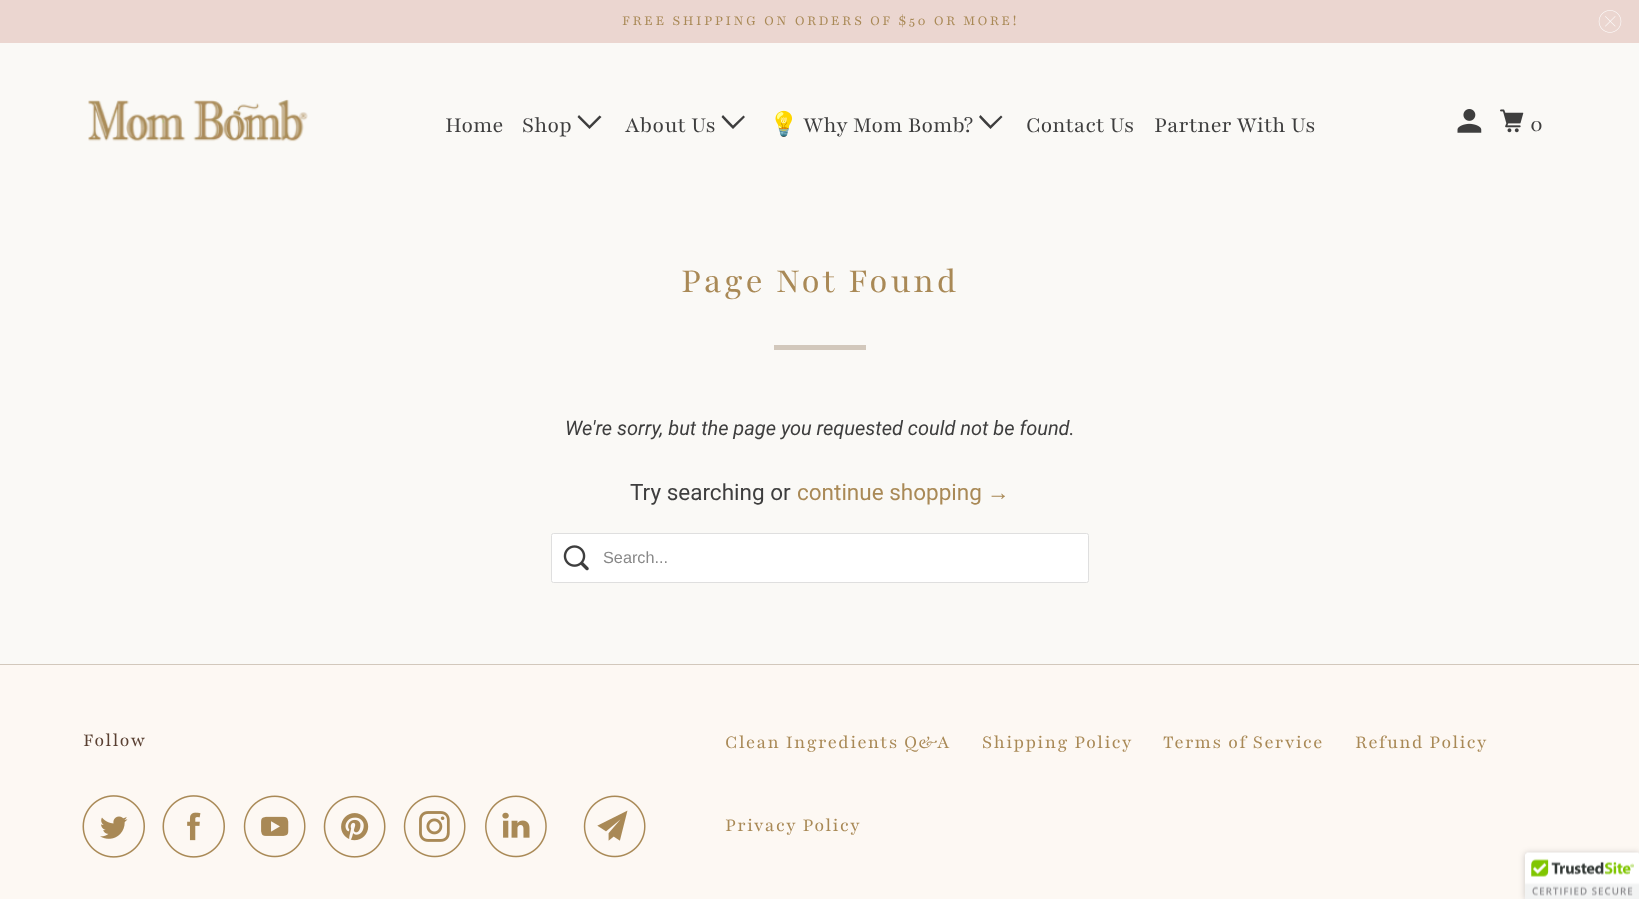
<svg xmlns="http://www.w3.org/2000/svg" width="1639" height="899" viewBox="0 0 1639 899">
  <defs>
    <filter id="blur1" x="-50%" y="-200%" width="200%" height="500%"><feGaussianBlur stdDeviation="3"/></filter>
  </defs>
  <rect width="100%" height="100%" fill="#faf9f6"/>
  <rect x="0" y="0" width="1639" height="43" fill="#ebd6d0"/>
  <text x="622" y="25" font-family="'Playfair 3'" font-size="15" letter-spacing="2.5" fill="#a98956">FREE SHIPPING ON ORDERS OF $50 OR MORE!</text>
  <image x="1598" y="10" width="24" height="23" href="img1.png"/>
  <image x="88" y="99" width="220" height="43" href="img2.png"/>
  <text x="445" y="132" font-family="'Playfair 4'" font-size="23.75" fill="#3e3e3e">Home</text>
  <text x="522" y="132" font-family="'Playfair 4'" font-size="23.75" fill="#3e3e3e">Shop</text>
  <path d="M583.5 123L577.5 117L579 115L589.5 125.5L599.5 115.5L601.5 117L589.5 129Z" fill="#3e3e3e"/>
  <text x="625" y="132" font-family="'Playfair 4'" font-size="23.75" fill="#3e3e3e">About Us</text>
  <path d="M727 123L721.5 117L723 115L733 125.5L743.5 115.5L745 117L733 129Z" fill="#3e3e3e"/>
  <text x="769" y="132" font-family="Noto Color Emoji" font-size="23.75" fill="#3e3e3e">💡</text>
  <text x="803" y="132" font-family="'Playfair 4'" font-size="23.75" fill="#3e3e3e">Why Mom Bomb?</text>
  <path d="M984.5 123L979 117L980.5 115L990.5 125.5L1001 115.5L1002.5 117L990.5 129Z" fill="#3e3e3e"/>
  <text x="1026" y="132" font-family="'Playfair 4'" font-size="23.75" fill="#3e3e3e">Contact Us</text>
  <text x="1154" y="132" font-family="'Playfair 4'" font-size="23.75" fill="#3e3e3e">Partner With Us</text>
  <image x="1457" y="109" width="25" height="24" href="img3.png"/>
  <image x="1500" y="109" width="24" height="24" href="img4.png"/>
  <text x="1530" y="131" font-family="'Playfair 4'" font-size="23.75" fill="#3e3e3e">0</text>
  <text x="681" y="292" font-family="Playfair" font-size="37.5" letter-spacing="2.5" fill="#a98956">Page Not Found</text>
  <rect x="774" y="345" width="92" height="5" fill="#d2c8bc"/>
  <text x="565" y="435" font-family="Roboto" font-size="20" font-style="italic" fill="#3e3e3e">We're sorry, but the page you requested could not be found.</text>
  <text x="630" y="500" font-family="Roboto" font-size="22.5" fill="#3e3e3e">Try searching or</text>
  <text x="797" y="500" font-family="Roboto" font-size="22.5" fill="#a98956">continue shopping</text>
  <text x="987" y="500" font-family="Liberation Sans" font-size="22.5" fill="#a98956">→</text>
  <rect x="551.5" y="533.5" width="537" height="49" rx="2" fill="#ffffff" stroke="#dfdfdf"/>
  <image x="563" y="545" width="26" height="26" href="img5.png"/>
  <text x="603" y="563" font-family="Liberation Sans" font-size="16.25" fill="#888888">Search...</text>
  <rect x="0" y="665" width="1639" height="234" fill="#fdf8f3"/>
  <rect x="0" y="664" width="1639" height="1" fill="#d2c8bc"/>
  <text x="83" y="746" font-family="'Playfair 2'" font-size="20" letter-spacing="1.25" fill="#5a4032">Follow</text>
  <image x="82" y="795" width="63" height="63" href="img6.png"/>
  <image x="162" y="795" width="63" height="63" href="img7.png"/>
  <image x="243" y="795" width="63" height="63" href="img8.png"/>
  <image x="323" y="795" width="63" height="63" href="img9.png"/>
  <image x="403" y="795" width="63" height="63" href="img10.png"/>
  <image x="485" y="795" width="62" height="63" href="img11.png"/>
  <image x="583" y="795" width="63" height="63" href="img12.png"/>
  <text x="725" y="748" font-family="'Playfair 2'" font-size="20" letter-spacing="1.25" fill="#a98956">Clean Ingredients Q&amp;A</text>
  <text x="982" y="748" font-family="'Playfair 2'" font-size="20" letter-spacing="1.25" fill="#a98956">Shipping Policy</text>
  <text x="1163" y="748" font-family="'Playfair 2'" font-size="20" letter-spacing="1.25" fill="#a98956">Terms of Service</text>
  <text x="1355" y="748" font-family="'Playfair 2'" font-size="20" letter-spacing="1.25" fill="#a98956">Refund Policy</text>
  <text x="725" y="831" font-family="'Playfair 2'" font-size="20" letter-spacing="1.25" fill="#a98956">Privacy Policy</text>
  <rect x="1525" y="853" width="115" height="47" rx="2.5" fill="#000000" fill-opacity="0.2" filter="url(#blur1)"/>
  <image x="1525" y="852" width="114" height="47" href="img13.png"/>
</svg>
